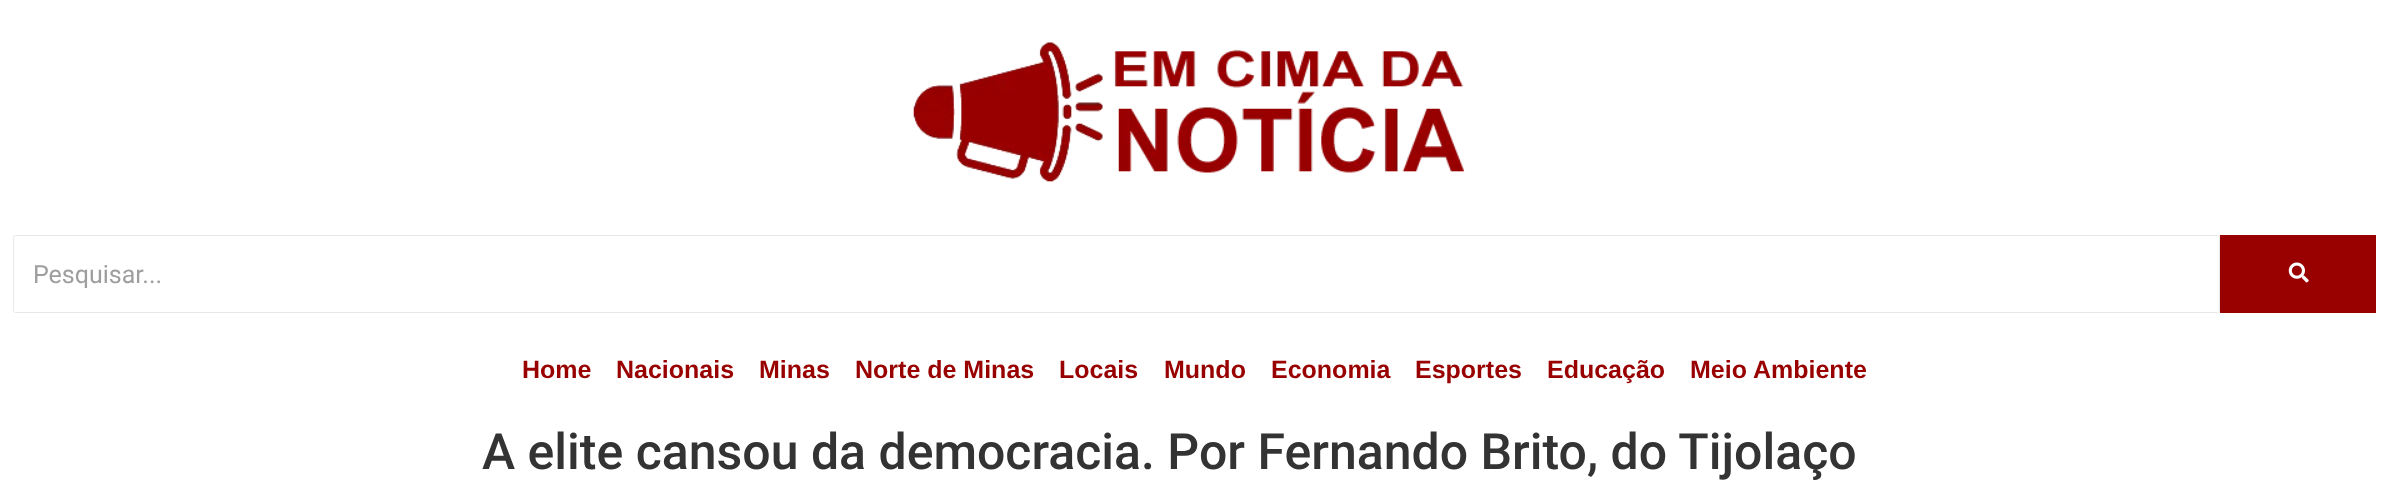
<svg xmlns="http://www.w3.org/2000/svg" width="2388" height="499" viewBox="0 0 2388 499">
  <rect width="100%" height="100%" fill="#ffffff"/>
  <image x="913" y="42" width="552" height="140" href="img1.png"/>
  <rect x="13.5" y="235.5" width="2206" height="77" rx="2" fill="none" stroke="#e8e8e8"/>
  <text x="33" y="283" font-family="Roboto" font-size="25" fill="#9e9e9e">Pesquisar...</text>
  <rect x="2220" y="235" width="156" height="78" fill="#990000"/>
  <image x="2288" y="262" width="21" height="21" href="img2.png"/>
  <text x="522" y="378" font-family="Liberation Sans" font-size="25" font-weight="bold" fill="#990000">Home</text>
  <text x="616" y="378" font-family="Liberation Sans" font-size="25" font-weight="bold" fill="#990000">Nacionais</text>
  <text x="759" y="378" font-family="Liberation Sans" font-size="25" font-weight="bold" fill="#990000">Minas</text>
  <text x="855" y="378" font-family="Liberation Sans" font-size="25" font-weight="bold" fill="#990000">Norte de Minas</text>
  <text x="1059" y="378" font-family="Liberation Sans" font-size="25" font-weight="bold" fill="#990000">Locais</text>
  <text x="1164" y="378" font-family="Liberation Sans" font-size="25" font-weight="bold" fill="#990000">Mundo</text>
  <text x="1271" y="378" font-family="Liberation Sans" font-size="25" font-weight="bold" fill="#990000">Economia</text>
  <text x="1415" y="378" font-family="Liberation Sans" font-size="25" font-weight="bold" fill="#990000">Esportes</text>
  <text x="1547" y="378" font-family="Liberation Sans" font-size="25" font-weight="bold" fill="#990000">Educação</text>
  <text x="1690" y="378" font-family="Liberation Sans" font-size="25" font-weight="bold" fill="#990000">Meio Ambiente</text>
  <text x="482" y="469" font-family="Roboto" font-size="50" font-weight="500" fill="#333333">A elite cansou da democracia. Por Fernando Brito, do Tijolaço</text>
</svg>
